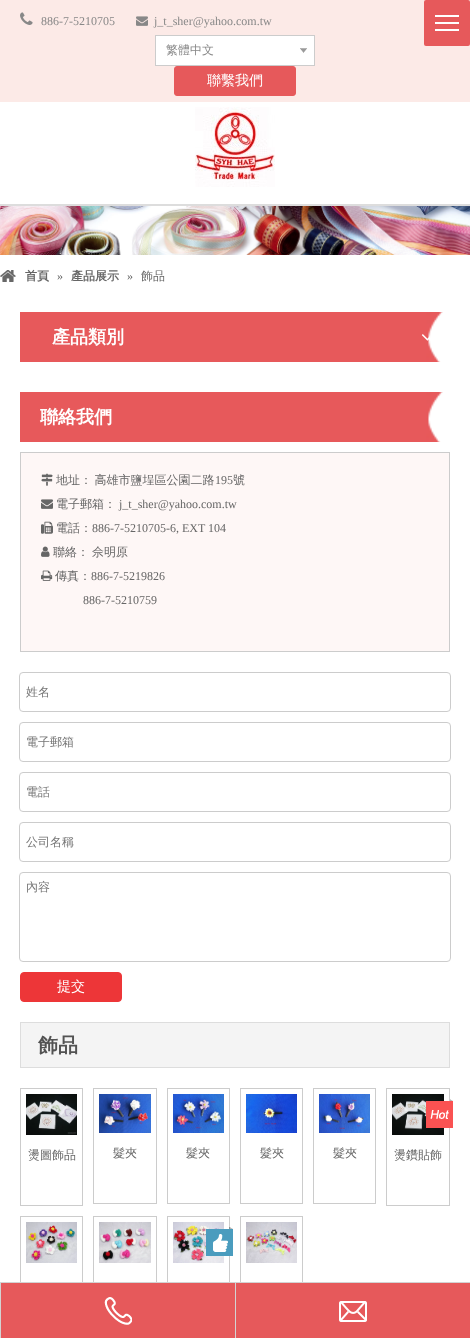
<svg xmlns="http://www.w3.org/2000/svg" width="470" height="1338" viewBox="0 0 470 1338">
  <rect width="100%" height="100%" fill="#ffffff"/>
  <rect x="0" y="0" width="470" height="102" fill="#fceae7"/>
  <image x="20" y="12" width="13" height="13" href="img1.png"/>
  <text x="41" y="25" font-family="Liberation Serif" font-size="12" fill="#888888">886-7-5210705</text>
  <image x="136" y="16" width="12" height="10" href="img2.png"/>
  <text x="154" y="25" font-family="Liberation Serif" font-size="12" fill="#888888">j_t_sher@yahoo.com.tw</text>
  <rect x="155.5" y="35.5" width="159" height="30" fill="#ffffff" stroke="#cccccc"/>
  <text x="166" y="54" font-family="WenQuanYi Zen Hei" font-size="12" font-weight="500" fill="#888888">繁體中文</text>
  <image x="300" y="48" width="7" height="5" href="img3.png"/>
  <rect x="174.5" y="66.5" width="121" height="29" rx="2.5" fill="#e6595b" stroke="#e6595b"/>
  <text x="207" y="85" font-family="WenQuanYi Zen Hei" font-size="14" font-weight="500" fill="#ffffff">聯繫我們</text>
  <rect x="424" y="0" width="46" height="46" rx="2" fill="#e6595b"/>
  <rect x="435" y="15" width="24" height="2" fill="#ffffff"/>
  <rect x="435" y="22" width="24" height="2" fill="#ffffff"/>
  <rect x="435" y="29" width="24" height="2" fill="#ffffff"/>
  <image x="195" y="107" width="80" height="80" href="img4.png"/>
  <rect x="0" y="204" width="470" height="2" fill="#dddddd"/>
  <image x="0" y="206" width="470" height="49" href="img5.png"/>
  <image x="0" y="270" width="16" height="12" href="img6.png"/>
  <text x="25" y="280" font-family="WenQuanYi Zen Hei" font-size="12" font-weight="bold" fill="#666666">首頁</text>
  <text x="57" y="280" font-family="Liberation Serif" font-size="12" fill="#666666">»</text>
  <text x="71" y="280" font-family="WenQuanYi Zen Hei" font-size="12" font-weight="bold" fill="#666666">產品展示</text>
  <text x="127" y="280" font-family="Liberation Serif" font-size="12" fill="#666666">»</text>
  <text x="141" y="280" font-family="WenQuanYi Zen Hei" font-size="12" font-weight="500" fill="#666666">飾品</text>
  <image x="20" y="312" width="423" height="50" href="img7.png"/>
  <text x="52" y="343" font-family="WenQuanYi Zen Hei" font-size="18" font-weight="bold" fill="#ffffff">產品類別</text>
  <image x="421" y="334" width="9" height="7" href="img8.png"/>
  <image x="20" y="392" width="423" height="50" href="img7.png"/>
  <text x="40" y="423" font-family="WenQuanYi Zen Hei" font-size="18" font-weight="bold" fill="#ffffff">聯絡我們</text>
  <rect x="20.5" y="452.5" width="429" height="199" fill="#fef7f6" stroke="#cccccc"/>
  <image x="41" y="473" width="12" height="13" href="img9.png"/>
  <text x="56" y="484" font-family="WenQuanYi Zen Hei" font-size="12" font-weight="500" fill="#666666">地址</text>
  <text x="80" y="484" word-spacing="-1" font-family="WenQuanYi Zen Hei" font-size="12" font-weight="500" fill="#666666">： 高雄市鹽埕區公園二路</text>
  <text x="215" y="484" font-family="Liberation Serif" font-size="12" fill="#666666">195</text>
  <text x="233" y="484" font-family="WenQuanYi Zen Hei" font-size="12" font-weight="500" fill="#666666">號</text>
  <image x="41" y="499" width="12" height="10" href="img10.png"/>
  <text x="56" y="508" font-family="WenQuanYi Zen Hei" font-size="12" font-weight="500" fill="#666666">電子郵箱：</text>
  <text x="119" y="508" font-family="Liberation Serif" font-size="12" fill="#666666">j_t_sher@yahoo.com.tw</text>
  <image x="41" y="521" width="12" height="13" href="img11.png"/>
  <text x="56" y="532" font-family="WenQuanYi Zen Hei" font-size="12" font-weight="500" fill="#666666">電話：</text>
  <text x="92" y="532" font-family="Liberation Serif" font-size="12" fill="#666666">886-7-5210705-6, EXT 104</text>
  <image x="41" y="546" width="9" height="11" href="img12.png"/>
  <text x="53" y="556" font-family="WenQuanYi Zen Hei" font-size="12" font-weight="500" fill="#666666">聯絡：</text>
  <text x="92" y="556" font-family="WenQuanYi Zen Hei" font-size="12" font-weight="500" fill="#666666">佘明原</text>
  <image x="41" y="570" width="12" height="11" href="img13.png"/>
  <text x="55" y="580" font-family="WenQuanYi Zen Hei" font-size="12" font-weight="500" fill="#666666">傳真：</text>
  <text x="91" y="580" font-family="Liberation Serif" font-size="12" fill="#666666">886-7-5219826</text>
  <text x="83" y="604" font-family="Liberation Serif" font-size="12" fill="#666666">886-7-5210759</text>
  <rect x="19.5" y="672.5" width="431" height="39" rx="3.5" fill="none" stroke="#cccccc"/>
  <text x="26" y="696" font-family="WenQuanYi Zen Hei" font-size="12" font-weight="500" fill="#757575">姓名</text>
  <rect x="19.5" y="722.5" width="431" height="39" rx="3.5" fill="none" stroke="#cccccc"/>
  <text x="26" y="746" font-family="WenQuanYi Zen Hei" font-size="12" font-weight="500" fill="#757575">電子郵箱</text>
  <rect x="19.5" y="772.5" width="431" height="39" rx="3.5" fill="none" stroke="#cccccc"/>
  <text x="26" y="796" font-family="WenQuanYi Zen Hei" font-size="12" font-weight="500" fill="#757575">電話</text>
  <rect x="19.5" y="822.5" width="431" height="39" rx="3.5" fill="none" stroke="#cccccc"/>
  <text x="26" y="846" font-family="WenQuanYi Zen Hei" font-size="12" font-weight="500" fill="#757575">公司名稱</text>
  <rect x="19.5" y="872.5" width="431" height="89" rx="3.5" fill="none" stroke="#cccccc"/>
  <text x="26" y="891" font-family="WenQuanYi Zen Hei" font-size="12" font-weight="500" fill="#757575">內容</text>
  <rect x="20.5" y="972.5" width="101" height="29" rx="3.5" fill="#ed3638" stroke="#ed3638"/>
  <text x="57" y="991" font-family="WenQuanYi Zen Hei" font-size="14" font-weight="500" fill="#ffffff">提交</text>
  <rect x="20.5" y="1022.5" width="429" height="45" fill="#f4f4f4" stroke="#dddddd"/>
  <text x="38" y="1052" font-family="WenQuanYi Zen Hei" font-size="20" font-weight="bold" fill="#535353">飾品</text>
  <rect x="20.5" y="1088.5" width="62" height="117" fill="none" stroke="#cccccc"/>
  <image x="26" y="1094" width="51" height="41" href="img14.png"/>
  <text x="28" y="1159" font-family="WenQuanYi Zen Hei" font-size="12" font-weight="500" fill="#666666">燙圖飾品</text>
  <rect x="93.5" y="1088.5" width="63" height="115" fill="none" stroke="#cccccc"/>
  <image x="99" y="1094" width="52" height="39" href="img15.png"/>
  <text x="113" y="1157" font-family="WenQuanYi Zen Hei" font-size="12" font-weight="500" fill="#666666">髮夾</text>
  <rect x="167.5" y="1088.5" width="62" height="115" fill="none" stroke="#cccccc"/>
  <image x="173" y="1094" width="51" height="39" href="img16.png"/>
  <text x="186" y="1157" font-family="WenQuanYi Zen Hei" font-size="12" font-weight="500" fill="#666666">髮夾</text>
  <rect x="240.5" y="1088.5" width="62" height="115" fill="none" stroke="#cccccc"/>
  <image x="246" y="1094" width="51" height="39" href="img17.png"/>
  <text x="260" y="1157" font-family="WenQuanYi Zen Hei" font-size="12" font-weight="500" fill="#666666">髮夾</text>
  <rect x="313.5" y="1088.5" width="62" height="115" fill="none" stroke="#cccccc"/>
  <image x="319" y="1094" width="51" height="39" href="img18.png"/>
  <text x="333" y="1157" font-family="WenQuanYi Zen Hei" font-size="12" font-weight="500" fill="#666666">髮夾</text>
  <rect x="386.5" y="1088.5" width="63" height="117" fill="none" stroke="#cccccc"/>
  <image x="392" y="1094" width="52" height="41" href="img19.png"/>
  <image x="426" y="1099" width="27" height="29" href="img20.png"/>
  <text x="394" y="1159" font-family="WenQuanYi Zen Hei" font-size="12" font-weight="500" fill="#666666">燙鑽貼飾</text>
  <rect x="20.5" y="1216.5" width="62" height="117" fill="none" stroke="#cccccc"/>
  <image x="26" y="1222" width="51" height="41" href="img21.png"/>
  <rect x="93.5" y="1216.5" width="63" height="117" fill="none" stroke="#cccccc"/>
  <image x="99" y="1222" width="52" height="41" href="img22.png"/>
  <rect x="167.5" y="1216.5" width="62" height="117" fill="none" stroke="#cccccc"/>
  <image x="173" y="1222" width="51" height="41" href="img23.png"/>
  <image x="206" y="1227" width="27" height="29" href="img24.png"/>
  <rect x="240.5" y="1216.5" width="62" height="117" fill="none" stroke="#cccccc"/>
  <image x="246" y="1222" width="51" height="41" href="img25.png"/>
  <rect x="0" y="1282" width="470" height="1" fill="#d3d3d3"/>
  <rect x="0" y="1283" width="1" height="55" fill="#d3d3d3"/>
  <rect x="1" y="1283" width="234" height="55" fill="#e6595b"/>
  <image x="104" y="1297" width="28" height="28" href="img26.png"/>
  <rect x="235" y="1283" width="1" height="55" fill="#d3d3d3"/>
  <rect x="236" y="1283" width="234" height="55" fill="#e6595b"/>
  <image x="339" y="1301" width="28" height="21" href="img27.png"/>
</svg>
